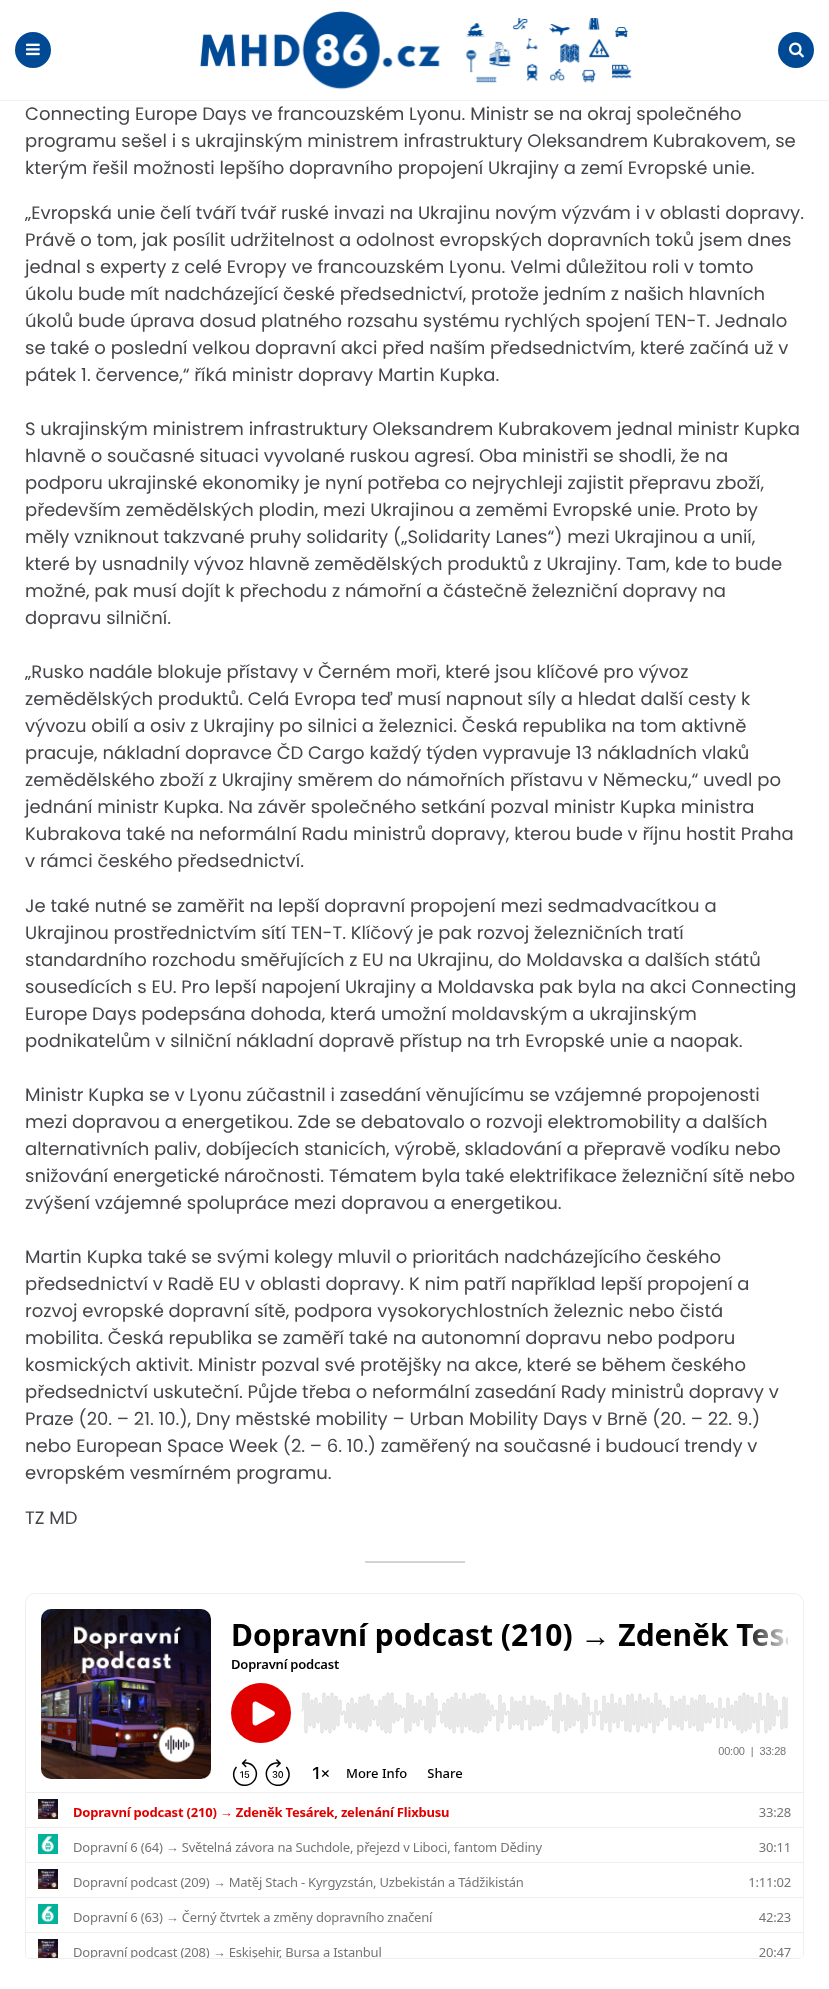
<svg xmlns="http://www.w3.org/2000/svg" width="829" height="1989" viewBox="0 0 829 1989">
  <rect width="100%" height="100%" fill="#ffffff"/>
  <rect x="0" y="100" width="829" height="1" fill="#f1f1f1"/>
  <circle cx="33" cy="50" r="18" fill="#004a95"/>
  <image x="26" y="43" width="14" height="13" href="img1.png"/>
  <image x="199" y="11" width="433" height="79" href="img2.png"/>
  <circle cx="796" cy="50" r="18" fill="#004a95"/>
  <image x="789" y="42" width="15" height="16" href="img3.png"/>
  <text x="25" y="120" font-family="Poppins" font-size="18" fill="#45464b">Connecting Europe Days ve francouzském Lyonu. Ministr se na okraj společného</text>
  <text x="25" y="147" font-family="Poppins" font-size="18" fill="#45464b">programu sešel i s ukrajinským ministrem infrastruktury Oleksandrem Kubrakovem, se</text>
  <text x="25" y="174" font-family="Poppins" font-size="18" fill="#45464b">kterým řešil možnosti lepšího dopravního propojení Ukrajiny a zemí Evropské unie.</text>
  <text x="25" y="219" font-family="Poppins" font-size="18" fill="#45464b">„Evropská unie čelí tváří tvář ruské invazi na Ukrajinu novým výzvám i v oblasti dopravy.</text>
  <text x="25" y="246" font-family="Poppins" font-size="18" fill="#45464b">Právě o tom, jak posílit udržitelnost a odolnost evropských dopravních toků jsem dnes</text>
  <text x="25" y="273" font-family="Poppins" font-size="18" fill="#45464b">jednal s experty z celé Evropy ve francouzském Lyonu. Velmi důležitou roli v tomto</text>
  <text x="25" y="300" font-family="Poppins" font-size="18" fill="#45464b">úkolu bude mít nadcházející české předsednictví, protože jedním z našich hlavních</text>
  <text x="25" y="327" font-family="Poppins" font-size="18" fill="#45464b">úkolů bude úprava dosud platného rozsahu systému rychlých spojení TEN-T. Jednalo</text>
  <text x="25" y="354" font-family="Poppins" font-size="18" fill="#45464b">se také o poslední velkou dopravní akci před naším předsednictvím, které začíná už v</text>
  <text x="25" y="381" font-family="Poppins" font-size="18" fill="#45464b">pátek 1. července,“ říká ministr dopravy Martin Kupka.</text>
  <text x="25" y="435" font-family="Poppins" font-size="18" fill="#45464b">S ukrajinským ministrem infrastruktury Oleksandrem Kubrakovem jednal ministr Kupka</text>
  <text x="25" y="462" font-family="Poppins" font-size="18" fill="#45464b">hlavně o současné situaci vyvolané ruskou agresí. Oba ministři se shodli, že na</text>
  <text x="25" y="489" font-family="Poppins" font-size="18" fill="#45464b">podporu ukrajinské ekonomiky je nyní potřeba co nejrychleji zajistit přepravu zboží,</text>
  <text x="25" y="516" font-family="Poppins" font-size="18" fill="#45464b">především zemědělských plodin, mezi Ukrajinou a zeměmi Evropské unie. Proto by</text>
  <text x="25" y="543" font-family="Poppins" font-size="18" fill="#45464b">měly vzniknout takzvané pruhy solidarity („Solidarity Lanes“) mezi Ukrajinou a unií,</text>
  <text x="25" y="570" font-family="Poppins" font-size="18" fill="#45464b">které by usnadnily vývoz hlavně zemědělských produktů z Ukrajiny. Tam, kde to bude</text>
  <text x="25" y="597" font-family="Poppins" font-size="18" fill="#45464b">možné, pak musí dojít k přechodu z námořní a částečně železniční dopravy na</text>
  <text x="25" y="624" font-family="Poppins" font-size="18" fill="#45464b">dopravu silniční.</text>
  <text x="25" y="678" font-family="Poppins" font-size="18" fill="#45464b">„Rusko nadále blokuje přístavy v Černém moři, které jsou klíčové pro vývoz</text>
  <text x="25" y="705" font-family="Poppins" font-size="18" fill="#45464b">zemědělských produktů. Celá Evropa teď musí napnout síly a hledat další cesty k</text>
  <text x="25" y="732" font-family="Poppins" font-size="18" fill="#45464b">vývozu obilí a osiv z Ukrajiny po silnici a železnici. Česká republika na tom aktivně</text>
  <text x="25" y="759" font-family="Poppins" font-size="18" fill="#45464b">pracuje, nákladní dopravce ČD Cargo každý týden vypravuje 13 nákladních vlaků</text>
  <text x="25" y="786" font-family="Poppins" font-size="18" fill="#45464b">zemědělského zboží z Ukrajiny směrem do námořních přístavu v Německu,“ uvedl po</text>
  <text x="25" y="813" font-family="Poppins" font-size="18" fill="#45464b">jednání ministr Kupka. Na závěr společného setkání pozval ministr Kupka ministra</text>
  <text x="25" y="840" font-family="Poppins" font-size="18" fill="#45464b">Kubrakova také na neformální Radu ministrů dopravy, kterou bude v říjnu hostit Praha</text>
  <text x="25" y="867" font-family="Poppins" font-size="18" fill="#45464b">v rámci českého předsednictví.</text>
  <text x="25" y="912" font-family="Poppins" font-size="18" fill="#45464b">Je také nutné se zaměřit na lepší dopravní propojení mezi sedmadvacítkou a</text>
  <text x="25" y="939" font-family="Poppins" font-size="18" fill="#45464b">Ukrajinou prostřednictvím sítí TEN-T. Klíčový je pak rozvoj železničních tratí</text>
  <text x="25" y="966" font-family="Poppins" font-size="18" fill="#45464b">standardního rozchodu směřujících z EU na Ukrajinu, do Moldavska a dalších států</text>
  <text x="25" y="993" font-family="Poppins" font-size="18" fill="#45464b">sousedících s EU. Pro lepší napojení Ukrajiny a Moldavska pak byla na akci Connecting</text>
  <text x="25" y="1020" font-family="Poppins" font-size="18" fill="#45464b">Europe Days podepsána dohoda, která umožní moldavským a ukrajinským</text>
  <text x="25" y="1047" font-family="Poppins" font-size="18" fill="#45464b">podnikatelům v silniční nákladní dopravě přístup na trh Evropské unie a naopak.</text>
  <text x="25" y="1101" font-family="Poppins" font-size="18" fill="#45464b">Ministr Kupka se v Lyonu zúčastnil i zasedání věnujícímu se vzájemné propojenosti</text>
  <text x="25" y="1128" font-family="Poppins" font-size="18" fill="#45464b">mezi dopravou a energetikou. Zde se debatovalo o rozvoji elektromobility a dalších</text>
  <text x="25" y="1155" font-family="Poppins" font-size="18" fill="#45464b">alternativních paliv, dobíjecích stanicích, výrobě, skladování a přepravě vodíku nebo</text>
  <text x="25" y="1182" font-family="Poppins" font-size="18" fill="#45464b">snižování energetické náročnosti. Tématem byla také elektrifikace železniční sítě nebo</text>
  <text x="25" y="1209" font-family="Poppins" font-size="18" fill="#45464b">zvýšení vzájemné spolupráce mezi dopravou a energetikou.</text>
  <text x="25" y="1263" font-family="Poppins" font-size="18" fill="#45464b">Martin Kupka také se svými kolegy mluvil o prioritách nadcházejícího českého</text>
  <text x="25" y="1290" font-family="Poppins" font-size="18" fill="#45464b">předsednictví v Radě EU v oblasti dopravy. K nim patří například lepší propojení a</text>
  <text x="25" y="1317" font-family="Poppins" font-size="18" fill="#45464b">rozvoj evropské dopravní sítě, podpora vysokorychlostních železnic nebo čistá</text>
  <text x="25" y="1344" font-family="Poppins" font-size="18" fill="#45464b">mobilita. Česká republika se zaměří také na autonomní dopravu nebo podporu</text>
  <text x="25" y="1371" font-family="Poppins" font-size="18" fill="#45464b">kosmických aktivit. Ministr pozval své protějšky na akce, které se během českého</text>
  <text x="25" y="1398" font-family="Poppins" font-size="18" fill="#45464b">předsednictví uskuteční. Půjde třeba o neformální zasedání Rady ministrů dopravy v</text>
  <text x="25" y="1425" font-family="Poppins" font-size="18" fill="#45464b">Praze (20. – 21. 10.), Dny městské mobility – Urban Mobility Days v Brně (20. – 22. 9.)</text>
  <text x="25" y="1452" font-family="Poppins" font-size="18" fill="#45464b">nebo European Space Week (2. – 6. 10.) zaměřený na současné i budoucí trendy v</text>
  <text x="25" y="1479" font-family="Poppins" font-size="18" fill="#45464b">evropském vesmírném programu.</text>
  <text x="25" y="1524" font-family="Poppins" font-size="18" fill="#45464b">TZ MD</text>
  <rect x="365" y="1561" width="100" height="2" fill="#d3d3d3"/>
  <image x="25" y="1593" width="779" height="366" href="img4.png"/>
</svg>
